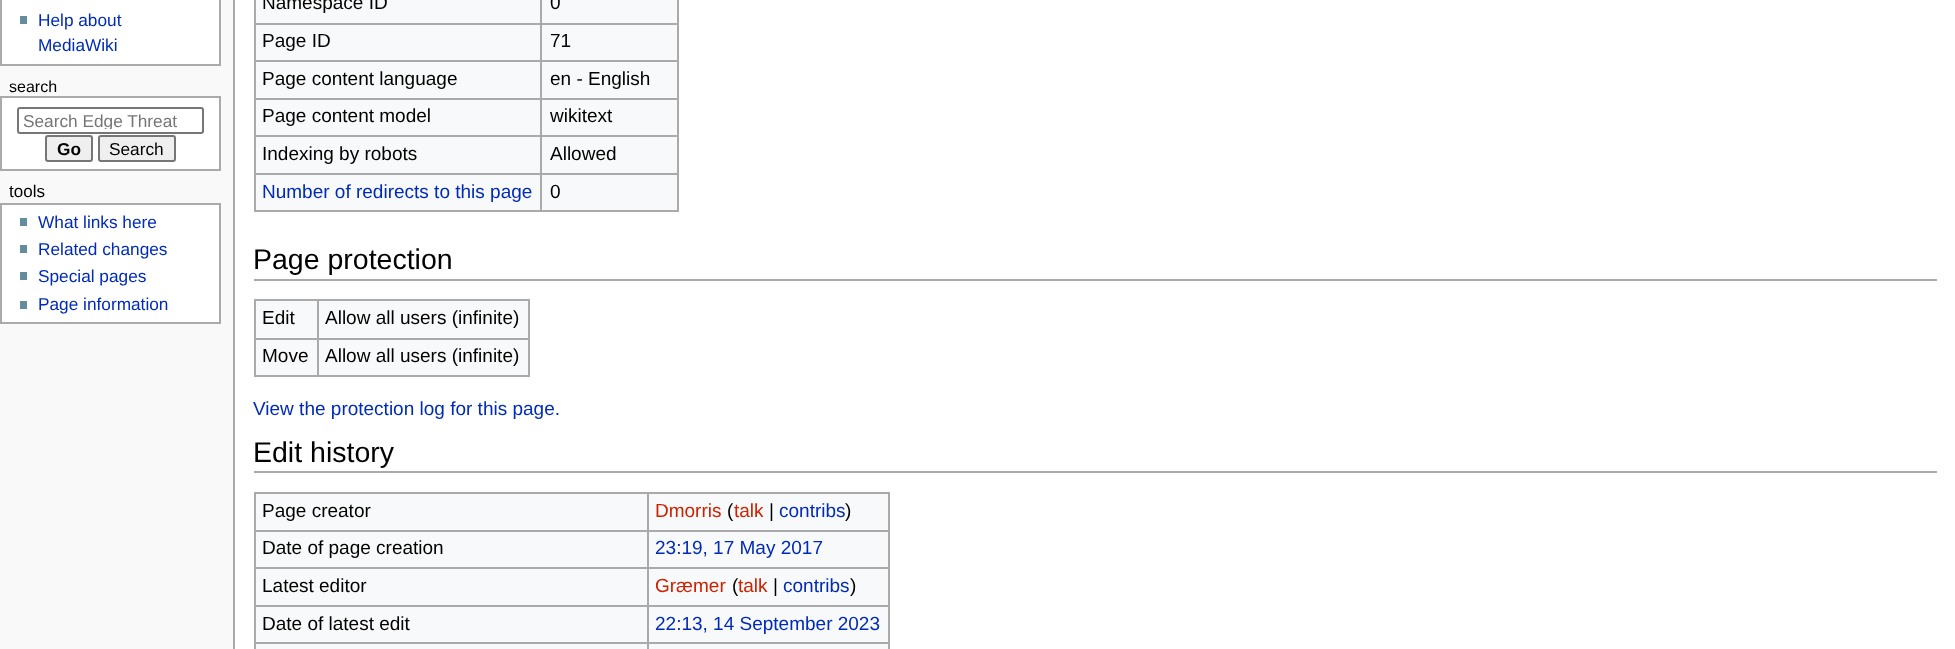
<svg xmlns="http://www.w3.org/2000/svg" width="1955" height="649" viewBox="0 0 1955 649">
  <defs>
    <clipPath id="clip1"><rect x="23" y="111" width="157" height="18"/></clipPath>
  </defs>
  <rect width="100%" height="100%" fill="#f9f9f9"/>
  <rect x="1" y="-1" width="219" height="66" fill="#ffffff" stroke="#aaaaaa" stroke-width="2"/>
  <rect x="20" y="16" width="7" height="8" fill="#638c9c"/>
  <text x="38" y="26" font-family="Liberation Sans" font-size="17.25" fill="#002bb8">Help about</text>
  <text x="38" y="51" font-family="Liberation Sans" font-size="17.25" fill="#002bb8">MediaWiki</text>
  <text x="9" y="92" font-family="Liberation Sans" font-size="16" fill="#000000">search</text>
  <rect x="1" y="97" width="219" height="73" fill="#ffffff" stroke="#aaaaaa" stroke-width="2"/>
  <rect x="18" y="108" width="185" height="25" rx="2" fill="none" stroke="#767676" stroke-width="2"/>
  <g clip-path="url(#clip1)">
    <text x="23" y="127" font-family="Liberation Sans" font-size="17.25" fill="#757575">Search Edge Threat</text>
  </g>
  <rect x="46" y="136" width="46" height="25" rx="2" fill="#efefef" stroke="#767676" stroke-width="2"/>
  <text x="57" y="155" font-family="Liberation Sans" font-size="17.25" font-weight="bold" fill="#000000">Go</text>
  <rect x="99" y="136" width="76" height="25" rx="2" fill="#efefef" stroke="#767676" stroke-width="2"/>
  <text x="109" y="155" font-family="Liberation Sans" font-size="17.25" fill="#000000">Search</text>
  <text x="9" y="197" font-family="Liberation Sans" font-size="17" fill="#000000">tools</text>
  <rect x="1" y="204" width="219" height="119" fill="#ffffff" stroke="#aaaaaa" stroke-width="2"/>
  <rect x="20" y="218" width="7" height="8" fill="#638c9c"/>
  <text x="38" y="228" font-family="Liberation Sans" font-size="17.25" fill="#002bb8">What links here</text>
  <rect x="20" y="245" width="7" height="8" fill="#638c9c"/>
  <text x="38" y="255" font-family="Liberation Sans" font-size="17.25" fill="#002bb8">Related changes</text>
  <rect x="20" y="272" width="7" height="8" fill="#638c9c"/>
  <text x="38" y="282" font-family="Liberation Sans" font-size="17.25" fill="#002bb8">Special pages</text>
  <rect x="20" y="301" width="7" height="8" fill="#638c9c"/>
  <text x="38" y="310" font-family="Liberation Sans" font-size="17.25" fill="#002bb8">Page information</text>
  <rect x="235" y="0" width="1720" height="649" fill="#ffffff"/>
  <rect x="233" y="0" width="2" height="649" fill="#aaaaaa"/>
  <rect x="256" y="0" width="421" height="210" fill="#f8f9fa"/>
  <rect x="677" y="0" width="2" height="212" fill="#aaaaaa"/>
  <rect x="254" y="210" width="424" height="2" fill="#aaaaaa"/>
  <rect x="254" y="0" width="2" height="212" fill="#aaaaaa"/>
  <text x="262" y="9" font-family="Liberation Sans" font-size="19" fill="#000000">Namespace ID</text>
  <rect x="540" y="23" width="138" height="2" fill="#aaaaaa"/>
  <rect x="540" y="60" width="138" height="2" fill="#aaaaaa"/>
  <rect x="540" y="98" width="138" height="2" fill="#aaaaaa"/>
  <rect x="540" y="135" width="138" height="2" fill="#aaaaaa"/>
  <rect x="540" y="173" width="138" height="2" fill="#aaaaaa"/>
  <rect x="540" y="173" width="2" height="39" fill="#aaaaaa"/>
  <rect x="254" y="173" width="288" height="2" fill="#aaaaaa"/>
  <rect x="540" y="135" width="2" height="39" fill="#aaaaaa"/>
  <rect x="254" y="135" width="288" height="2" fill="#aaaaaa"/>
  <rect x="540" y="98" width="2" height="39" fill="#aaaaaa"/>
  <rect x="254" y="98" width="288" height="2" fill="#aaaaaa"/>
  <rect x="540" y="60" width="2" height="39" fill="#aaaaaa"/>
  <rect x="254" y="60" width="288" height="2" fill="#aaaaaa"/>
  <rect x="540" y="23" width="2" height="39" fill="#aaaaaa"/>
  <rect x="254" y="23" width="288" height="2" fill="#aaaaaa"/>
  <rect x="540" y="0" width="2" height="24" fill="#aaaaaa"/>
  <text x="550" y="9" font-family="Liberation Sans" font-size="19" fill="#000000">0</text>
  <text x="262" y="47" font-family="Liberation Sans" font-size="19" fill="#000000">Page ID</text>
  <text x="550" y="47" font-family="Liberation Sans" font-size="19" fill="#000000">71</text>
  <text x="262" y="85" font-family="Liberation Sans" font-size="19" fill="#000000">Page content language</text>
  <text x="550" y="85" font-family="Liberation Sans" font-size="19" fill="#000000">en - English</text>
  <text x="262" y="122" font-family="Liberation Sans" font-size="19" fill="#000000">Page content model</text>
  <text x="550" y="122" font-family="Liberation Sans" font-size="19" fill="#000000">wikitext</text>
  <text x="262" y="160" font-family="Liberation Sans" font-size="19" fill="#000000">Indexing by robots</text>
  <text x="550" y="160" font-family="Liberation Sans" font-size="19" fill="#000000">Allowed</text>
  <text x="262" y="198" font-family="Liberation Sans" font-size="19" fill="#002bb8">Number of redirects to this page</text>
  <text x="550" y="198" font-family="Liberation Sans" font-size="19" fill="#000000">0</text>
  <rect x="254" y="279" width="1683" height="2" fill="#aaaaaa"/>
  <text x="253" y="269" font-family="Liberation Sans" font-size="28.5" fill="#000000">Page protection</text>
  <rect x="256" y="301" width="272" height="74" fill="#f8f9fa"/>
  <rect x="254" y="299" width="276" height="2" fill="#aaaaaa"/>
  <rect x="528" y="299" width="2" height="78" fill="#aaaaaa"/>
  <rect x="254" y="375" width="276" height="2" fill="#aaaaaa"/>
  <rect x="254" y="299" width="2" height="78" fill="#aaaaaa"/>
  <text x="262" y="324" font-family="Liberation Sans" font-size="19" fill="#000000">Edit</text>
  <rect x="317" y="338" width="213" height="2" fill="#aaaaaa"/>
  <rect x="317" y="338" width="2" height="39" fill="#aaaaaa"/>
  <rect x="254" y="338" width="64" height="2" fill="#aaaaaa"/>
  <rect x="317" y="299" width="2" height="40" fill="#aaaaaa"/>
  <text x="325" y="324" font-family="Liberation Sans" font-size="19" fill="#000000">Allow all users (infinite)</text>
  <text x="262" y="362" font-family="Liberation Sans" font-size="19" fill="#000000">Move</text>
  <text x="325" y="362" font-family="Liberation Sans" font-size="19" fill="#000000">Allow all users (infinite)</text>
  <text x="253" y="415" font-family="Liberation Sans" font-size="19" fill="#002bb8">View the protection log for this page.</text>
  <rect x="254" y="471" width="1683" height="2" fill="#aaaaaa"/>
  <text x="253" y="462" font-family="Liberation Sans" font-size="28.5" fill="#000000">Edit history</text>
  <rect x="256" y="494" width="632" height="155" fill="#f8f9fa"/>
  <rect x="254" y="492" width="636" height="2" fill="#aaaaaa"/>
  <rect x="888" y="492" width="2" height="157" fill="#aaaaaa"/>
  <rect x="254" y="492" width="2" height="157" fill="#aaaaaa"/>
  <text x="262" y="517" font-family="Liberation Sans" font-size="19" fill="#000000">Page creator</text>
  <rect x="647" y="530" width="243" height="2" fill="#aaaaaa"/>
  <rect x="647" y="567" width="243" height="2" fill="#aaaaaa"/>
  <rect x="647" y="605" width="243" height="2" fill="#aaaaaa"/>
  <rect x="647" y="642" width="243" height="2" fill="#aaaaaa"/>
  <rect x="647" y="642" width="2" height="7" fill="#aaaaaa"/>
  <rect x="254" y="642" width="394" height="2" fill="#aaaaaa"/>
  <rect x="647" y="605" width="2" height="39" fill="#aaaaaa"/>
  <rect x="254" y="605" width="394" height="2" fill="#aaaaaa"/>
  <rect x="647" y="567" width="2" height="39" fill="#aaaaaa"/>
  <rect x="254" y="567" width="394" height="2" fill="#aaaaaa"/>
  <rect x="647" y="530" width="2" height="39" fill="#aaaaaa"/>
  <rect x="254" y="530" width="394" height="2" fill="#aaaaaa"/>
  <rect x="647" y="492" width="2" height="39" fill="#aaaaaa"/>
  <text x="655" y="517" font-family="Liberation Sans" font-size="19" fill="#cc2200">Dmorris</text>
  <text x="727" y="517" font-family="Liberation Sans" font-size="19" fill="#000000">(</text>
  <text x="734" y="517" font-family="Liberation Sans" font-size="19" fill="#cc2200">talk</text>
  <text x="769" y="517" font-family="Liberation Sans" font-size="19" fill="#000000">|</text>
  <text x="779" y="517" font-family="Liberation Sans" font-size="19" fill="#002bb8">contribs</text>
  <text x="845" y="517" font-family="Liberation Sans" font-size="19" fill="#000000">)</text>
  <text x="262" y="554" font-family="Liberation Sans" font-size="19" fill="#000000">Date of page creation</text>
  <text x="655" y="554" font-family="Liberation Sans" font-size="19" fill="#002bb8">23:19, 17 May 2017</text>
  <text x="262" y="592" font-family="Liberation Sans" font-size="19" fill="#000000">Latest editor</text>
  <text x="655" y="592" font-family="Liberation Sans" font-size="19" fill="#cc2200">Græmer</text>
  <text x="732" y="592" font-family="Liberation Sans" font-size="19" fill="#000000">(</text>
  <text x="738" y="592" font-family="Liberation Sans" font-size="19" fill="#cc2200">talk</text>
  <text x="773" y="592" font-family="Liberation Sans" font-size="19" fill="#000000">|</text>
  <text x="783" y="592" font-family="Liberation Sans" font-size="19" fill="#002bb8">contribs</text>
  <text x="850" y="592" font-family="Liberation Sans" font-size="19" fill="#000000">)</text>
  <text x="262" y="630" font-family="Liberation Sans" font-size="19" fill="#000000">Date of latest edit</text>
  <text x="655" y="630" font-family="Liberation Sans" font-size="19" fill="#002bb8">22:13, 14 September 2023</text>
</svg>
